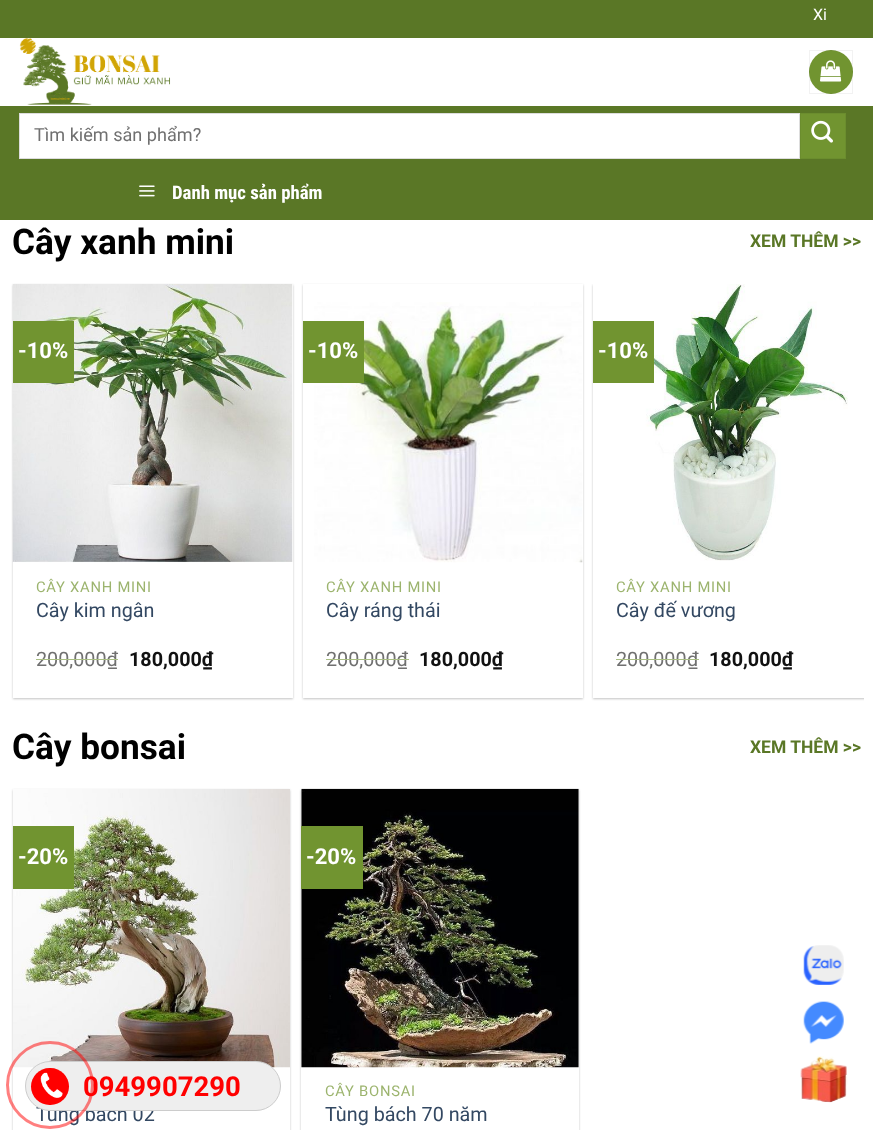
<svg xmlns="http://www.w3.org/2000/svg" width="873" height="1130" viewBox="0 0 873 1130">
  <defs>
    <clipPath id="clip1"><path d="M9 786H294V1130H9ZM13 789H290V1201H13Z" clip-rule="evenodd"/></clipPath>
    <filter id="blur1" x="-50%" y="-200%" width="200%" height="500%"><feGaussianBlur stdDeviation="1"/></filter>
    <clipPath id="clip2"><rect x="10" y="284" width="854" height="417"/></clipPath>
  </defs>
  <rect width="100%" height="100%" fill="#ffffff"/>
  <rect x="0" y="0" width="873" height="38" fill="#5a7726"/>
  <text x="813" y="20" font-family="Roboto" font-size="16" fill="#ffffff">Xi</text>
  <image x="19" y="38" width="152" height="67" href="img1.png"/>
  <circle cx="831" cy="72" r="22" fill="#719430"/>
  <rect x="809.5" y="50.5" width="43" height="43" fill="none" stroke="#000000" stroke-opacity="0.05"/>
  <image x="820" y="60" width="22" height="22" href="img2.png"/>
  <rect x="0" y="106" width="873" height="114" fill="#5a7726"/>
  <rect x="19.5" y="113.5" width="780" height="45" fill="#ffffff" stroke="#dddddd"/>
  <text x="34" y="141" font-family="Roboto" font-size="18.1" fill="#707070">Tìm kiếm sản phẩm?</text>
  <rect x="800.5" y="113.5" width="45" height="45" fill="#719430" stroke="#6b8d2e"/>
  <image x="811" y="120" width="22" height="23" href="img3.png"/>
  <image x="139" y="185" width="16" height="12" href="img4.png"/>
  <text x="172" y="199" font-family="Roboto Condensed" font-size="18.75" font-weight="bold" fill="#ffffff">Danh mục sản phẩm</text>
  <image x="803" y="945" width="41" height="40" href="img5.png"/>
  <image x="803" y="1001" width="41" height="43" href="img6.png"/>
  <g clip-path="url(#clip1)">
    <rect x="13" y="790" width="277" height="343" fill="#000000" fill-opacity="0.24" filter="url(#blur1)"/>
  </g>
  <image x="13" y="789" width="277" height="279" href="img12.png"/>
  <text x="36" y="1121" font-family="Roboto" font-size="19.75" fill="#334862">Tùng bách 02</text>
  <rect x="25.5" y="1061.5" width="255" height="49" rx="24.5" fill="#eeeeee" stroke="#cccccc"/>
  <text x="83" y="1096" font-family="Roboto" font-size="27.5" font-weight="bold" fill="#ff0000">0949907290</text>
  <circle cx="50" cy="1085" r="42.5" fill="none" stroke="#ff0000" stroke-opacity="0.5" stroke-width="3"/>
  <rect x="31" y="1068" width="38" height="37" rx="18.5" fill="#ff0000"/>
  <image x="40" y="1072" width="23" height="26" href="img7.png"/>
  <image x="800" y="1056" width="48" height="47" href="img8.png"/>
  <text x="12" y="254" font-family="Roboto" font-size="35.25" font-weight="bold" fill="#000000">Cây xanh mini</text>
  <text x="750" y="247" font-family="Roboto" font-size="17.5" font-weight="bold" fill="#5a7726">XEM THÊM &gt;&gt;</text>
  <rect x="13" y="285" width="280" height="414" fill="#000000" fill-opacity="0.24" filter="url(#blur1)"/>
  <rect x="13" y="284" width="280" height="414" fill="#ffffff"/>
  <image x="12" y="284" width="281" height="279" href="img9.png"/>
  <rect x="13" y="321" width="61" height="62" fill="#719430"/>
  <text x="18" y="358" font-family="Roboto" font-size="22" font-weight="bold" fill="#ffffff">-10%</text>
  <text x="36" y="592" font-family="Roboto" font-size="14.75" letter-spacing="0.75" fill="#9cb46e">CÂY XANH MINI</text>
  <text x="36" y="617" font-family="Roboto" font-size="19.75" fill="#334862">Cây kim ngân</text>
  <text x="36" y="666" font-family="Roboto" font-size="19.75" fill="#707070">200,000₫</text>
  <rect x="36" y="659" width="82" height="1" fill="#aabf83"/>
  <text x="129" y="666" font-family="Roboto" font-size="19.75" font-weight="bold" fill="#111111">180,000₫</text>
  <rect x="303" y="285" width="280" height="414" fill="#000000" fill-opacity="0.24" filter="url(#blur1)"/>
  <rect x="303" y="284" width="280" height="414" fill="#ffffff"/>
  <image x="314" y="302" width="269" height="261" href="img10.png"/>
  <rect x="303" y="321" width="61" height="62" fill="#719430"/>
  <text x="308" y="358" font-family="Roboto" font-size="22" font-weight="bold" fill="#ffffff">-10%</text>
  <text x="326" y="592" font-family="Roboto" font-size="14.75" letter-spacing="0.75" fill="#9cb46e">CÂY XANH MINI</text>
  <text x="326" y="617" font-family="Roboto" font-size="19.75" fill="#334862">Cây ráng thái</text>
  <text x="326" y="666" font-family="Roboto" font-size="19.75" fill="#707070">200,000₫</text>
  <rect x="326" y="659" width="83" height="1" fill="#aabf83"/>
  <text x="419" y="666" font-family="Roboto" font-size="19.75" font-weight="bold" fill="#111111">180,000₫</text>
  <g clip-path="url(#clip2)">
    <rect x="593" y="285" width="280" height="414" fill="#000000" fill-opacity="0.24" filter="url(#blur1)"/>
  </g>
  <rect x="593" y="284" width="271" height="414" fill="#ffffff"/>
  <image x="616" y="284" width="232" height="277" href="img11.png"/>
  <rect x="593" y="321" width="61" height="62" fill="#719430"/>
  <text x="598" y="358" font-family="Roboto" font-size="22" font-weight="bold" fill="#ffffff">-10%</text>
  <text x="616" y="592" font-family="Roboto" font-size="14.75" letter-spacing="0.75" fill="#9cb46e">CÂY XANH MINI</text>
  <text x="616" y="617" font-family="Roboto" font-size="19.75" fill="#334862">Cây đế vương</text>
  <text x="616" y="666" font-family="Roboto" font-size="19.75" fill="#707070">200,000</text>
  <rect x="616" y="659" width="72" height="1" fill="#aabf83"/>
  <text x="687" y="666" font-family="Roboto" font-size="19.75" fill="#707070">₫</text>
  <rect x="688" y="659" width="11" height="1" fill="#aabf83"/>
  <text x="709" y="666" font-family="Roboto" font-size="19.75" font-weight="bold" fill="#111111">180,000₫</text>
  <text x="12" y="759" font-family="Roboto" font-size="35.25" font-weight="bold" fill="#000000">Cây bonsai</text>
  <text x="750" y="753" font-family="Roboto" font-size="17.5" font-weight="bold" fill="#5a7726">XEM THÊM &gt;&gt;</text>
  <rect x="13" y="826" width="61" height="63" fill="#719430"/>
  <text x="18" y="864" font-family="Roboto" font-size="22" font-weight="bold" fill="#ffffff">-20%</text>
  <rect x="301" y="790" width="278" height="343" fill="#000000" fill-opacity="0.24" filter="url(#blur1)"/>
  <rect x="301" y="789" width="278" height="341" fill="#ffffff"/>
  <image x="301" y="788" width="278" height="280" href="img13.png"/>
  <rect x="301" y="826" width="62" height="63" fill="#719430"/>
  <text x="306" y="864" font-family="Roboto" font-size="22" font-weight="bold" fill="#ffffff">-20%</text>
  <text x="325" y="1096" font-family="Roboto" font-size="14.75" letter-spacing="0.75" fill="#9cb46e">CÂY BONSAI</text>
  <text x="325" y="1121" font-family="Roboto" font-size="19.75" fill="#334862">Tùng bách 70 năm</text>
</svg>
